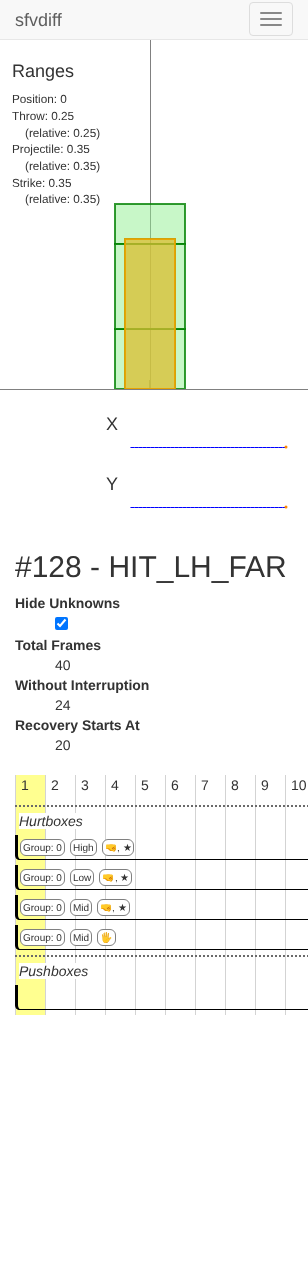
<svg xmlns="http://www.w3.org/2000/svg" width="308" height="1265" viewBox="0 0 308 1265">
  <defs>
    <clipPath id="clip1"><rect x="0" y="40" width="308" height="349"/></clipPath>
  </defs>
  <rect width="100%" height="100%" fill="#ffffff"/>
  <rect x="115" y="329" width="70" height="60" fill="#c8f7c8"/>
  <rect x="115" y="204" width="70" height="40" fill="#c8f7c8"/>
  <rect x="0" y="0" width="308" height="39" fill="#f8f8f8"/>
  <rect x="0" y="39" width="308" height="1" fill="#e7e7e7"/>
  <text x="15" y="26" font-family="Liberation Sans" font-size="18" fill="#5e5e5e">sfvdiff</text>
  <rect x="249.5" y="2.5" width="43" height="33" rx="3.5" fill="none" stroke="#dddddd"/>
  <rect x="260" y="12" width="22" height="2" rx="1" fill="#888888"/>
  <rect x="260" y="18" width="22" height="2" rx="1" fill="#888888"/>
  <rect x="260" y="24" width="22" height="2" rx="1" fill="#888888"/>
  <rect x="0" y="389" width="308" height="1" fill="#808080"/>
  <text x="12" y="77" font-family="Liberation Sans" font-size="18" fill="#333333">Ranges</text>
  <text x="12" y="103" font-family="Liberation Sans" font-size="11.75" fill="#333333">Position: 0</text>
  <text x="12" y="120" font-family="Liberation Sans" font-size="11.75" fill="#333333">Throw: 0.25</text>
  <text x="25" y="137" font-family="Liberation Sans" font-size="11.75" fill="#333333">(relative: 0.25)</text>
  <text x="12" y="153" font-family="Liberation Sans" font-size="11.75" fill="#333333">Projectile: 0.35</text>
  <text x="25" y="170" font-family="Liberation Sans" font-size="11.75" fill="#333333">(relative: 0.35)</text>
  <text x="12" y="187" font-family="Liberation Sans" font-size="11.75" fill="#333333">Strike: 0.35</text>
  <text x="25" y="203" font-family="Liberation Sans" font-size="11.75" fill="#333333">(relative: 0.35)</text>
  <rect x="150" y="40" width="1" height="289" fill="#808080"/>
  <rect x="150" y="329" width="1" height="51" fill="#88b788"/>
  <rect x="150" y="204" width="1" height="40" fill="#88b788"/>
  <rect x="115" y="204" width="70" height="40" fill="none" stroke="#008000" stroke-opacity="0.8" stroke-width="2"/>
  <rect x="141" y="388" width="18" height="1" fill="#88b788"/>
  <rect x="149" y="380" width="2" height="9" fill="#88b788"/>
  <g clip-path="url(#clip1)">
    <rect x="115" y="329" width="70" height="60" fill="none" stroke="#008000" stroke-opacity="0.8" stroke-width="2"/>
  </g>
  <rect x="115" y="244" width="70" height="85" fill="#90ee90" fill-opacity="0.5"/>
  <rect x="115" y="244" width="70" height="85" fill="none" stroke="#008000" stroke-opacity="0.8" stroke-width="2"/>
  <rect x="125" y="239" width="50" height="150" fill="#90ee90" fill-opacity="0.5"/>
  <g clip-path="url(#clip1)">
    <rect x="125" y="239" width="50" height="150" fill="none" stroke="#008000" stroke-opacity="0.8" stroke-width="2"/>
  </g>
  <rect x="125" y="239" width="50" height="150" fill="#ffa500" fill-opacity="0.5"/>
  <g clip-path="url(#clip1)">
    <rect x="125" y="239" width="50" height="150" fill="none" stroke="#ffa500" stroke-opacity="0.8" stroke-width="2"/>
  </g>
  <text x="106" y="430" font-family="Liberation Sans" font-size="18" fill="#333333">X</text>
  <image x="130" y="445" width="158" height="4" href="img1.png"/>
  <text x="106" y="490" font-family="Liberation Sans" font-size="18" fill="#333333">Y</text>
  <image x="130" y="505" width="158" height="4" href="img1.png"/>
  <text x="15" y="577" font-family="Liberation Sans" font-size="30" fill="#333333">#128 - HIT_LH_FAR</text>
  <text x="15" y="608" font-family="Liberation Sans" font-size="14" font-weight="bold" fill="#333333">Hide Unknowns</text>
  <rect x="55" y="617" width="13" height="13" rx="2" fill="#0075ff"/>
  <path d="M57.5 623.5L60 626L65.5 619.5" fill="none" stroke="#ffffff" stroke-width="2.1"/>
  <text x="15" y="650" font-family="Liberation Sans" font-size="14" font-weight="bold" fill="#333333">Total Frames</text>
  <text x="55" y="670" font-family="Liberation Sans" font-size="14" fill="#333333">40</text>
  <text x="15" y="690" font-family="Liberation Sans" font-size="14" font-weight="bold" fill="#333333">Without Interruption</text>
  <text x="55" y="710" font-family="Liberation Sans" font-size="14" fill="#333333">24</text>
  <text x="15" y="730" font-family="Liberation Sans" font-size="14" font-weight="bold" fill="#333333">Recovery Starts At</text>
  <text x="55" y="750" font-family="Liberation Sans" font-size="14" fill="#333333">20</text>
  <rect x="16" y="775" width="29" height="240" fill="#ffff90"/>
  <rect x="15" y="775" width="1" height="240" fill="#d3d3d3"/>
  <text x="21" y="790" font-family="Liberation Sans" font-size="14" fill="#333333">1</text>
  <rect x="45" y="775" width="1" height="240" fill="#d3d3d3"/>
  <text x="51" y="790" font-family="Liberation Sans" font-size="14" fill="#333333">2</text>
  <rect x="75" y="775" width="1" height="240" fill="#d3d3d3"/>
  <text x="81" y="790" font-family="Liberation Sans" font-size="14" fill="#333333">3</text>
  <rect x="105" y="775" width="1" height="240" fill="#d3d3d3"/>
  <text x="111" y="790" font-family="Liberation Sans" font-size="14" fill="#333333">4</text>
  <rect x="135" y="775" width="1" height="240" fill="#d3d3d3"/>
  <text x="141" y="790" font-family="Liberation Sans" font-size="14" fill="#333333">5</text>
  <rect x="165" y="775" width="1" height="240" fill="#d3d3d3"/>
  <text x="171" y="790" font-family="Liberation Sans" font-size="14" fill="#333333">6</text>
  <rect x="195" y="775" width="1" height="240" fill="#d3d3d3"/>
  <text x="201" y="790" font-family="Liberation Sans" font-size="14" fill="#333333">7</text>
  <rect x="225" y="775" width="1" height="240" fill="#d3d3d3"/>
  <text x="231" y="790" font-family="Liberation Sans" font-size="14" fill="#333333">8</text>
  <rect x="255" y="775" width="1" height="240" fill="#d3d3d3"/>
  <text x="261" y="790" font-family="Liberation Sans" font-size="14" fill="#333333">9</text>
  <rect x="285" y="775" width="1" height="240" fill="#d3d3d3"/>
  <text x="291" y="790" font-family="Liberation Sans" font-size="14" fill="#333333">10</text>
  <path d="M15 806H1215" fill="none" stroke="#6a6a6a" stroke-width="2" stroke-dasharray="2 2"/>
  <rect x="19" y="813" width="57" height="16" fill="#ffffff"/>
  <text x="19" y="826" font-family="Liberation Sans" font-size="14" font-style="italic" fill="#333333">Hurtboxes</text>
  <path d="M15 835H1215V855C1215 858 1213 860 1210 860H20C17 860 15 858 15 855ZM18 835H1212V855C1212 857 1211 859 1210 859H20C19 859 18 857 18 855Z" fill="#000000" fill-rule="evenodd"/>
  <rect x="20.5" y="839.5" width="44" height="16" rx="5.5" fill="#ffffff" stroke="#808080"/>
  <text x="23" y="851" font-family="Liberation Sans" font-size="10" fill="#333333">Group: 0</text>
  <rect x="70.5" y="839.5" width="26" height="16" rx="5.5" fill="#ffffff" stroke="#808080"/>
  <text x="73" y="851" font-family="Liberation Sans" font-size="10" fill="#333333">High</text>
  <rect x="102.5" y="839.5" width="31" height="16" rx="5.5" fill="#ffffff" stroke="#808080"/>
  <text x="105" y="851" font-family="Noto Color Emoji" font-size="10" fill="#333333">🤜</text>
  <text x="117" y="851" font-family="Liberation Sans" font-size="10" fill="#333333">,</text>
  <text x="123" y="851" font-family="DejaVu Sans" font-size="10" fill="#333333">★</text>
  <path d="M15 865H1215V885C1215 888 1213 890 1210 890H20C17 890 15 888 15 885ZM18 865H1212V885C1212 887 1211 889 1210 889H20C19 889 18 887 18 885Z" fill="#000000" fill-rule="evenodd"/>
  <rect x="20.5" y="869.5" width="44" height="16" rx="5.5" fill="#ffffff" stroke="#808080"/>
  <text x="23" y="881" font-family="Liberation Sans" font-size="10" fill="#333333">Group: 0</text>
  <rect x="70.5" y="869.5" width="23" height="16" rx="5.5" fill="#ffffff" stroke="#808080"/>
  <text x="73" y="881" font-family="Liberation Sans" font-size="10" fill="#333333">Low</text>
  <rect x="99.5" y="869.5" width="32" height="16" rx="5.5" fill="#ffffff" stroke="#808080"/>
  <text x="102" y="881" font-family="Noto Color Emoji" font-size="10" fill="#333333">🤜</text>
  <text x="115" y="881" font-family="Liberation Sans" font-size="10" fill="#333333">,</text>
  <text x="120" y="881" font-family="DejaVu Sans" font-size="10" fill="#333333">★</text>
  <path d="M15 895H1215V915C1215 918 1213 920 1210 920H20C17 920 15 918 15 915ZM18 895H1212V915C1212 917 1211 919 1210 919H20C19 919 18 917 18 915Z" fill="#000000" fill-rule="evenodd"/>
  <rect x="20.5" y="899.5" width="44" height="16" rx="5.5" fill="#ffffff" stroke="#808080"/>
  <text x="23" y="911" font-family="Liberation Sans" font-size="10" fill="#333333">Group: 0</text>
  <rect x="70.5" y="899.5" width="21" height="16" rx="5.5" fill="#ffffff" stroke="#808080"/>
  <text x="73" y="911" font-family="Liberation Sans" font-size="10" fill="#333333">Mid</text>
  <rect x="97.5" y="899.5" width="32" height="16" rx="5.5" fill="#ffffff" stroke="#808080"/>
  <text x="100" y="911" font-family="Noto Color Emoji" font-size="10" fill="#333333">🤜</text>
  <text x="112" y="911" font-family="Liberation Sans" font-size="10" fill="#333333">,</text>
  <text x="118" y="911" font-family="DejaVu Sans" font-size="10" fill="#333333">★</text>
  <path d="M15 925H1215V945C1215 948 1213 950 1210 950H20C17 950 15 948 15 945ZM18 925H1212V945C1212 947 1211 949 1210 949H20C19 949 18 947 18 945Z" fill="#000000" fill-rule="evenodd"/>
  <rect x="20.5" y="929.5" width="44" height="16" rx="5.5" fill="#ffffff" stroke="#808080"/>
  <text x="23" y="941" font-family="Liberation Sans" font-size="10" fill="#333333">Group: 0</text>
  <rect x="70.5" y="929.5" width="21" height="16" rx="5.5" fill="#ffffff" stroke="#808080"/>
  <text x="73" y="941" font-family="Liberation Sans" font-size="10" fill="#333333">Mid</text>
  <rect x="97.5" y="929.5" width="18" height="16" rx="5.5" fill="#ffffff" stroke="#808080"/>
  <text x="100" y="941" font-family="Noto Color Emoji" font-size="10" fill="#333333">🖐</text>
  <path d="M15 956H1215" fill="none" stroke="#6a6a6a" stroke-width="2" stroke-dasharray="2 2"/>
  <rect x="19" y="963" width="57" height="16" fill="#ffffff"/>
  <text x="19" y="976" font-family="Liberation Sans" font-size="14" font-style="italic" fill="#333333">Pushboxes</text>
  <path d="M15 985H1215V1005C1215 1008 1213 1010 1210 1010H20C17 1010 15 1008 15 1005ZM18 985H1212V1005C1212 1007 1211 1009 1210 1009H20C19 1009 18 1007 18 1005Z" fill="#000000" fill-rule="evenodd"/>
</svg>
